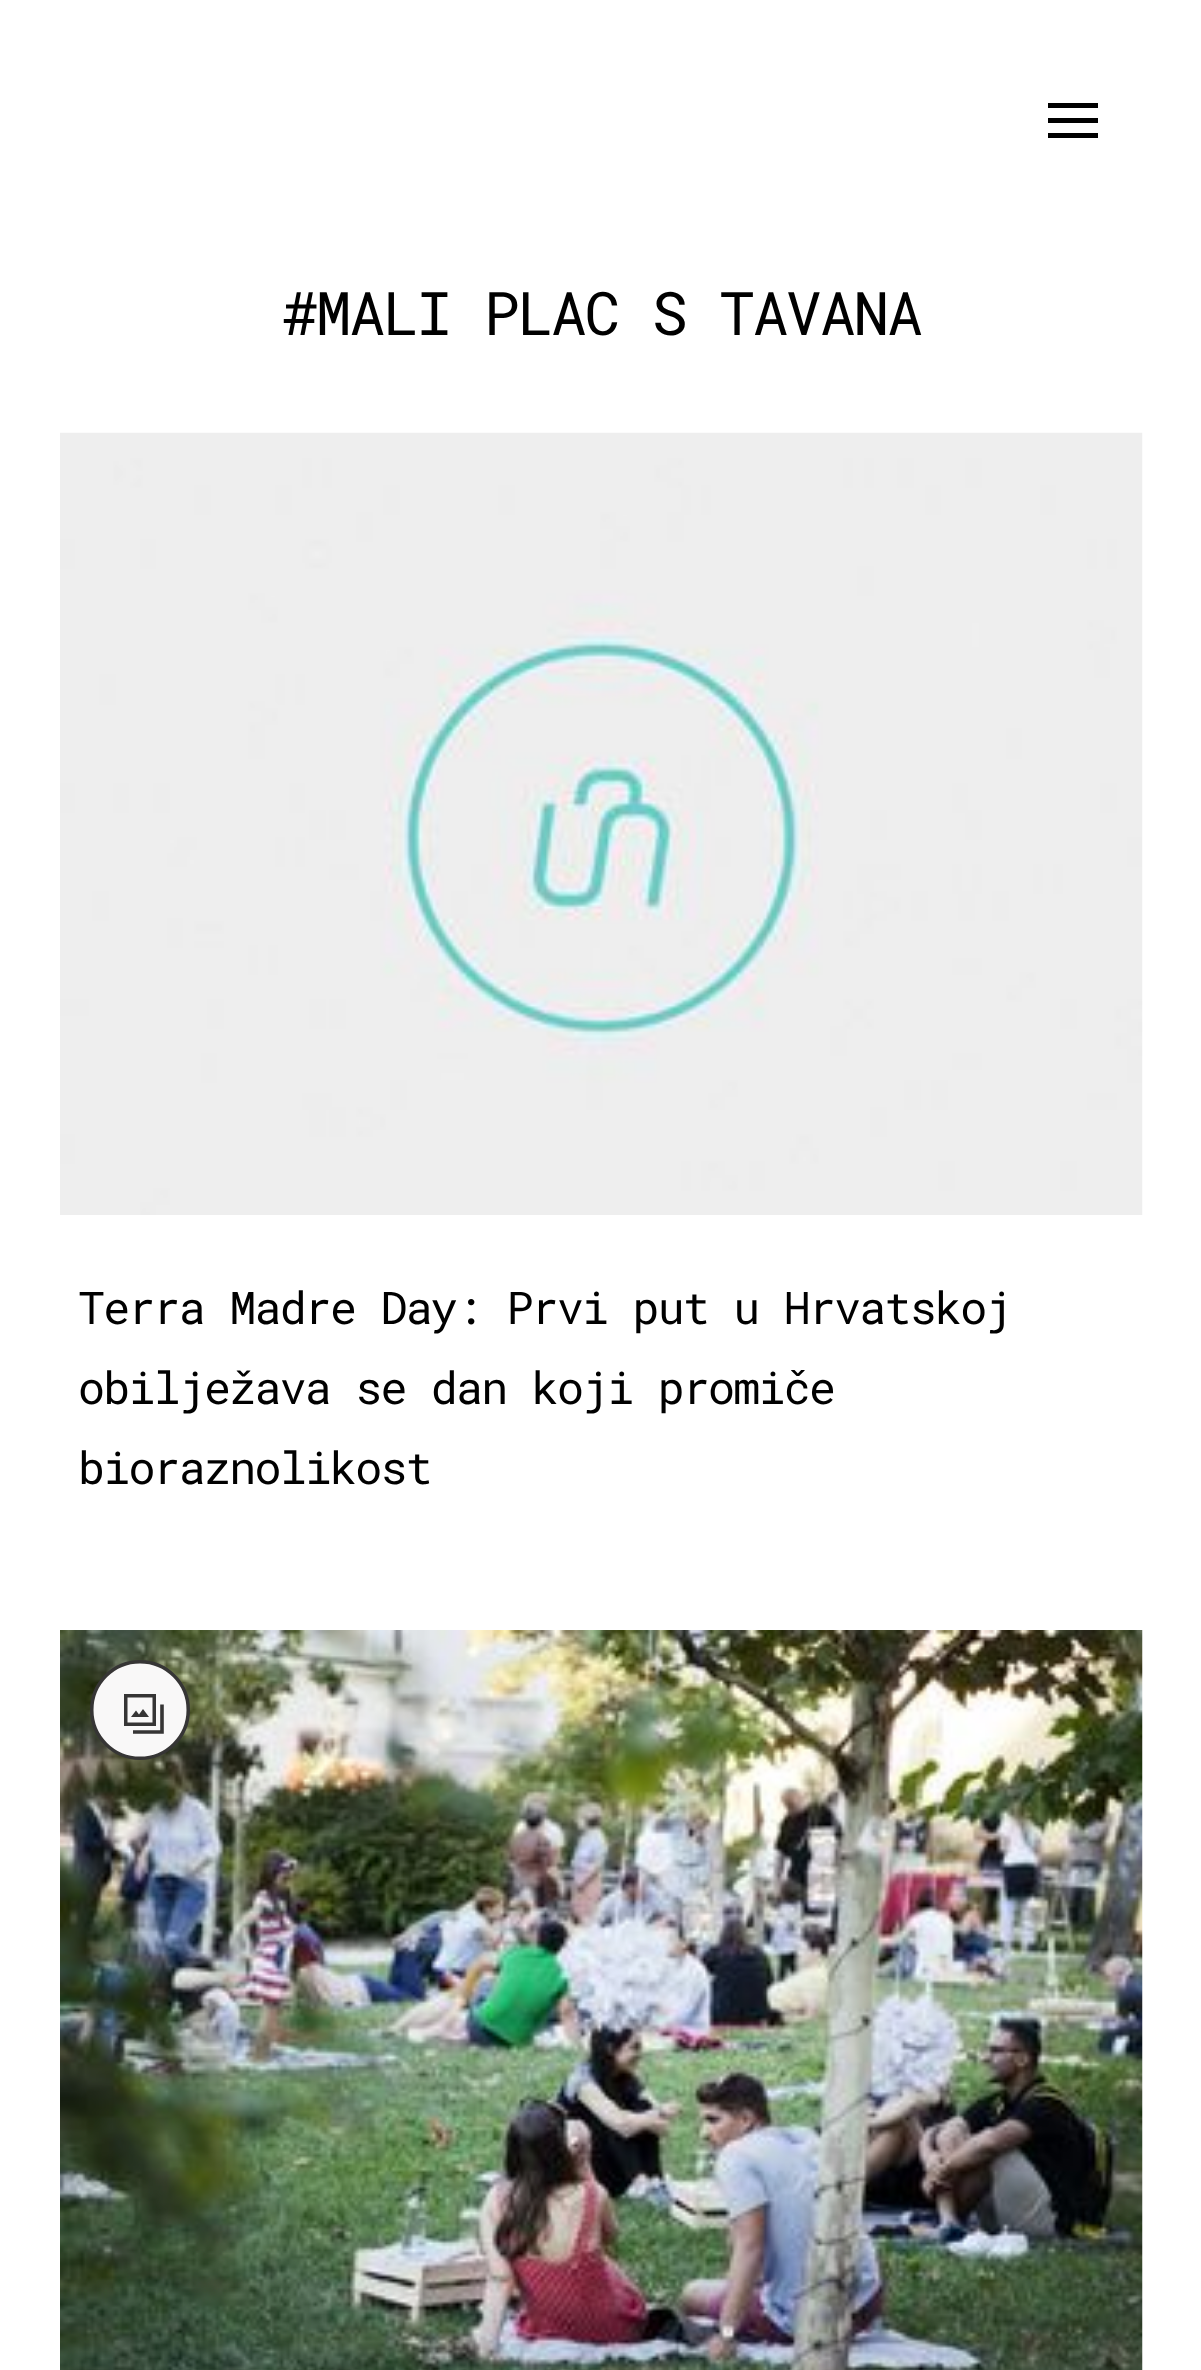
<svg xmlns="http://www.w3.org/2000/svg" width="1201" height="2370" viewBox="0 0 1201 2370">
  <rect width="100%" height="100%" fill="#ffffff"/>
  <rect x="1048" y="118" width="50" height="5" fill="#000000"/>
  <rect x="1048" y="103" width="50" height="5" fill="#000000"/>
  <rect x="1048" y="133" width="50" height="5" fill="#000000"/>
  <text x="282" y="335" font-family="Roboto Mono" font-size="60" letter-spacing="-2.4" fill="#000000">#MALI PLAC S TAVANA</text>
  <image x="60" y="432" width="1083" height="783" href="img1.png"/>
  <text x="78" y="1324" font-family="Roboto Mono" font-size="45" letter-spacing="-1.8" fill="#000000">Terra Madre Day: Prvi put u Hrvatskoj</text>
  <text x="78" y="1404" font-family="Roboto Mono" font-size="45" letter-spacing="-1.8" fill="#000000">obilježava se dan koji promiče</text>
  <text x="78" y="1484" font-family="Roboto Mono" font-size="45" letter-spacing="-1.8" fill="#000000">bioraznolikost</text>
  <image x="60" y="1630" width="1083" height="740" href="img2.png"/>
  <circle cx="140" cy="1710" r="48.25" fill="#f9f8f8" stroke="#363535" stroke-width="3.5"/>
  <path d="M131 1717H149L143 1709L139 1714.5L136 1710.5Z" fill="#363535"/>
  <rect x="125.75" y="1695.75" width="28.5" height="28.5" fill="none" stroke="#363535" stroke-width="3.5"/>
  <path d="M133 1732H162V1704.5" fill="none" stroke="#363535" stroke-width="3.6"/>
</svg>
